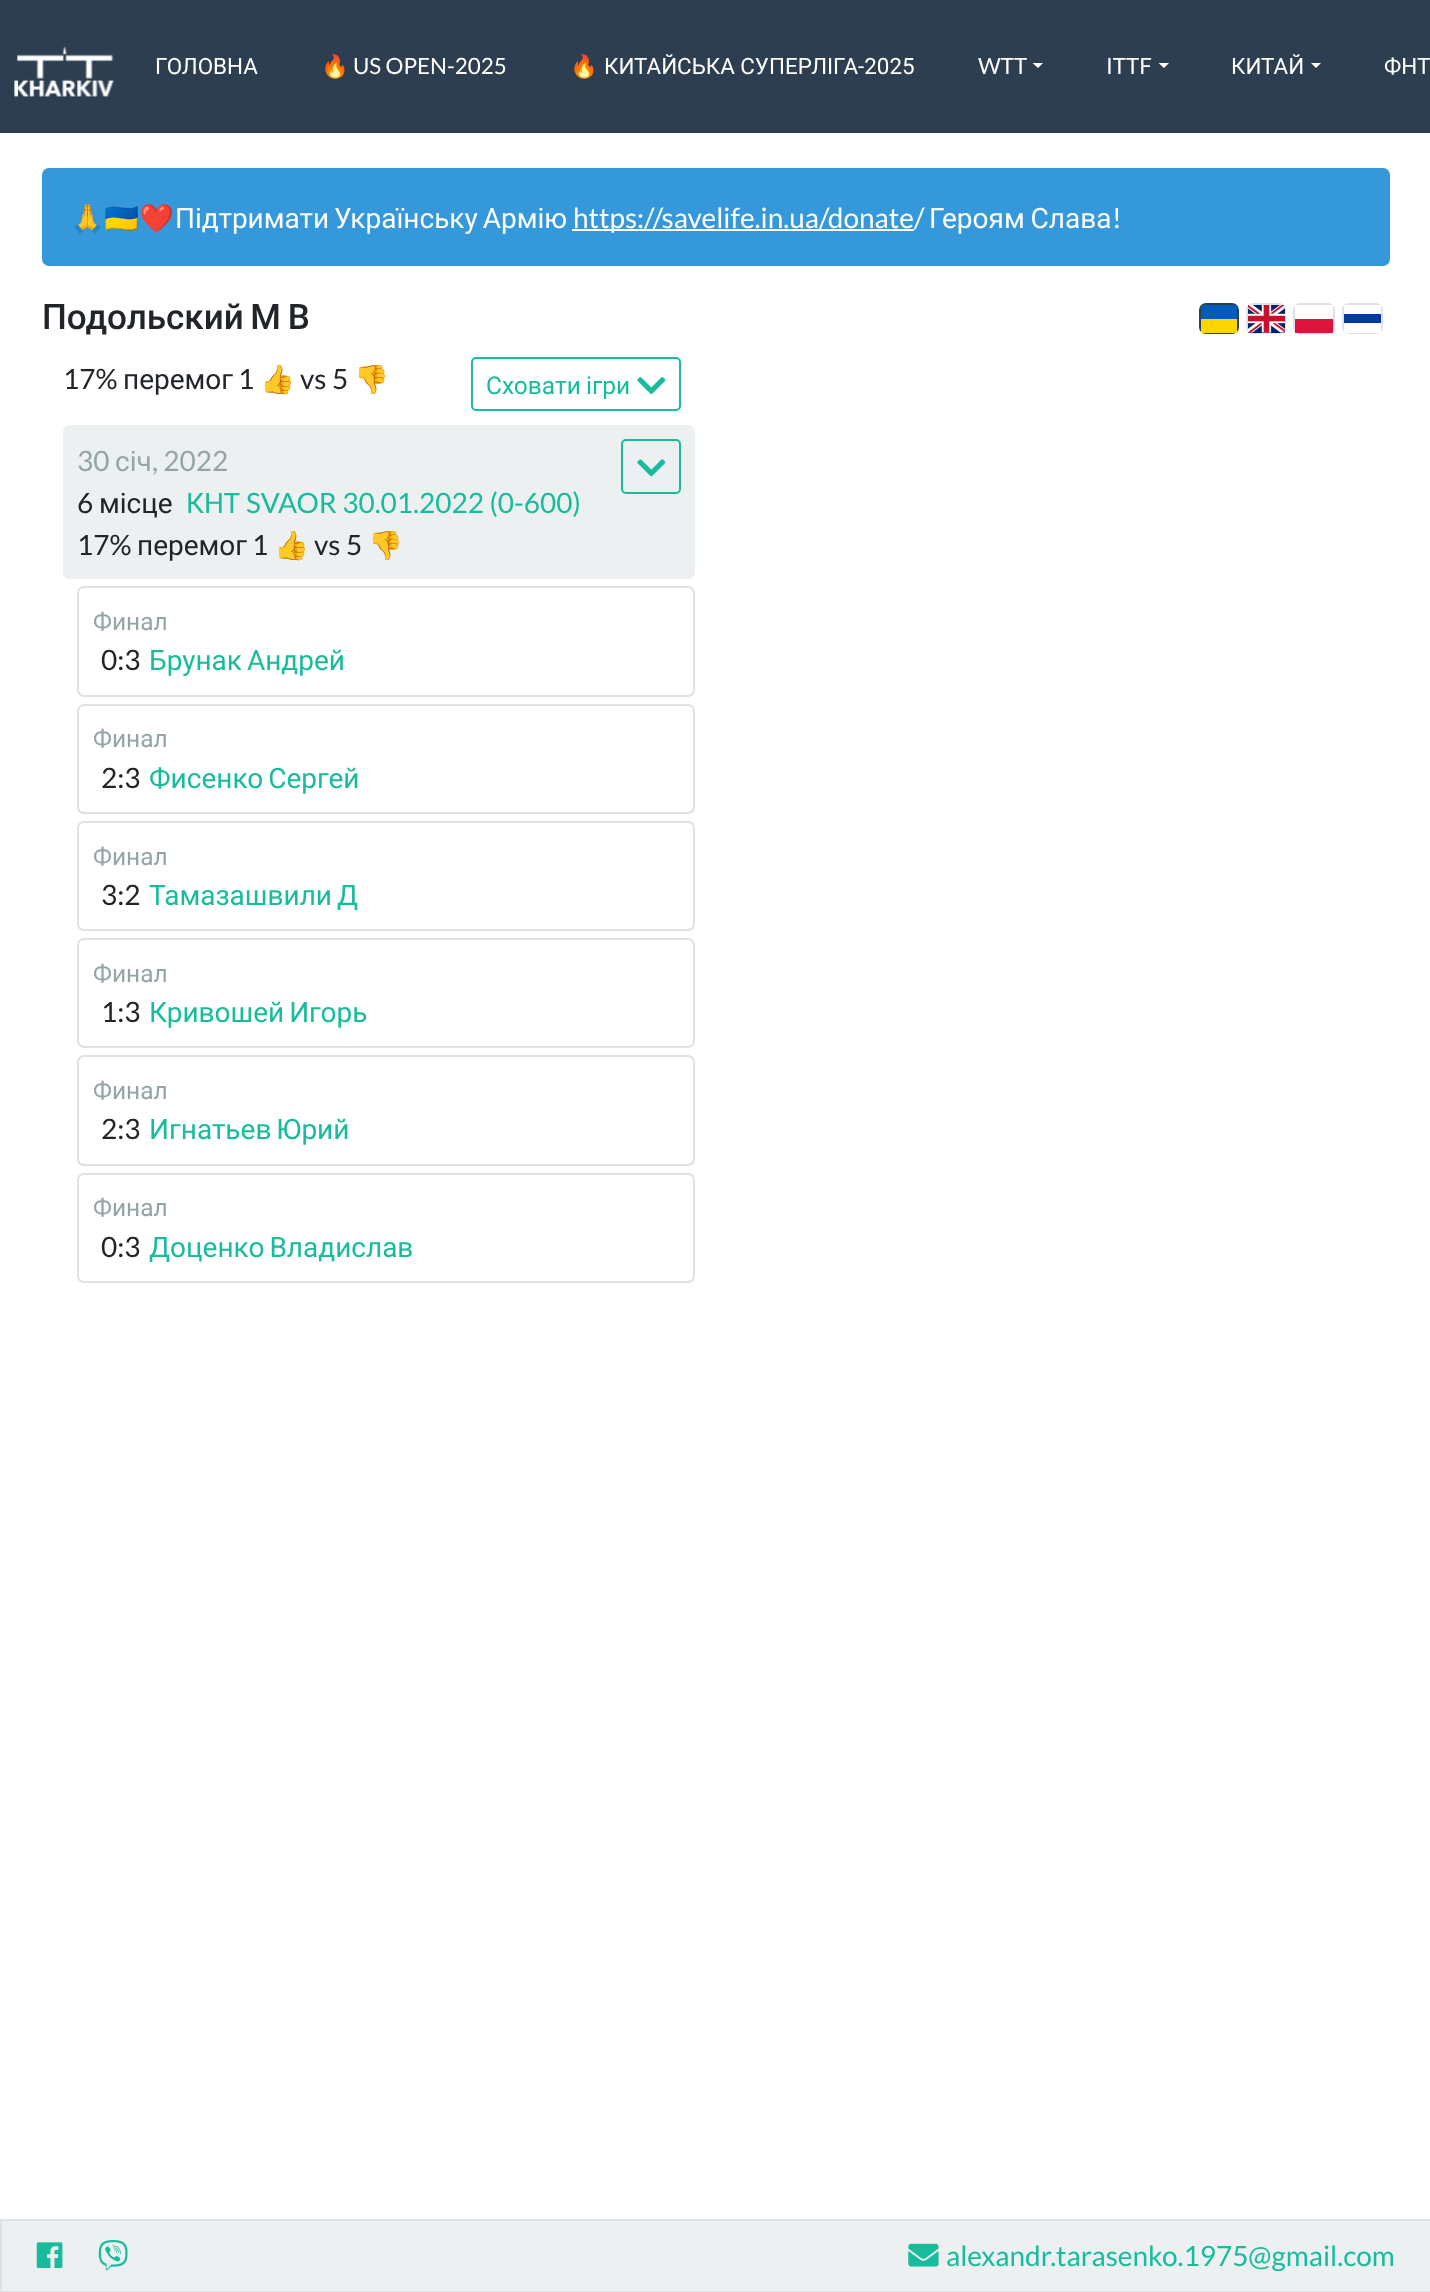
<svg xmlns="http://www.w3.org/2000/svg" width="1430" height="2292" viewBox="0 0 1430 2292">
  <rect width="100%" height="100%" fill="#ffffff"/>
  <rect x="0" y="0" width="1430" height="133" fill="#2c3e50"/>
  <image x="14" y="46" width="100" height="51" href="img1.png"/>
  <text x="155" y="74" font-family="Roboto" font-size="22.4" fill="#ffffff">ГОЛОВНА</text>
  <text x="321" y="74" font-family="Noto Color Emoji" font-size="22.4" fill="#ffffff">🔥</text>
  <text x="353" y="74" font-family="Lato" font-size="22.4" fill="#ffffff">US OPEN-2025</text>
  <text x="570" y="74" font-family="Noto Color Emoji" font-size="22.4" fill="#ffffff">🔥</text>
  <text x="604" y="74" font-family="Roboto" font-size="22.4" fill="#ffffff">КИТАЙСЬКА СУПЕРЛІГА-2025</text>
  <text x="978" y="74" font-family="Lato" font-size="22.4" fill="#ffffff">WTT</text>
  <path d="M1032.5 63H1043L1038 68Z" fill="#ffffff"/>
  <text x="1106" y="74" font-family="Lato" font-size="22.4" fill="#ffffff">ITTF</text>
  <path d="M1158.5 63H1169L1164 68Z" fill="#ffffff"/>
  <text x="1231" y="74" font-family="Roboto" font-size="22.4" fill="#ffffff">КИТАЙ</text>
  <path d="M1311 63H1321L1316 68Z" fill="#ffffff"/>
  <text x="1384" y="74" font-family="Roboto" font-size="22.4" fill="#ffffff">ФНТ</text>
  <rect x="42" y="168" width="1348" height="98" rx="7" fill="#3498db"/>
  <text x="70" y="228" font-family="Noto Color Emoji" font-size="28" fill="#ffffff">🙏🇺🇦❤️</text>
  <text x="175" y="228" word-spacing="-2" font-family="Roboto" font-size="28" fill="#ffffff">Підтримати Українську Армію</text>
  <rect x="572" y="229" width="342" height="2" fill="#ffffff"/>
  <text x="573" y="228" font-family="Lato" font-size="28" fill="#ffffff">https://savelife.in.ua/donate/</text>
  <text x="929" y="228" word-spacing="-1" font-family="Roboto" font-size="28" fill="#ffffff">Героям Слава</text>
  <text x="1112" y="228" font-family="Lato" font-size="28" fill="#ffffff">!</text>
  <text x="42" y="329" word-spacing="-2" font-family="Roboto" font-size="35" font-weight="500" fill="#212529">Подольский М В</text>
  <text x="63" y="389" font-family="Lato" font-size="28" fill="#212529">17%</text>
  <text x="123" y="389" font-family="Roboto" font-size="28" fill="#212529">перемог</text>
  <text x="238" y="389" font-family="Lato" font-size="28" fill="#212529">1</text>
  <text x="260" y="389" font-family="Noto Color Emoji" font-size="28" fill="#212529">👍</text>
  <text x="300" y="389" font-family="Lato" font-size="28" fill="#212529">vs 5</text>
  <text x="354" y="389" font-family="Noto Color Emoji" font-size="28" fill="#212529">👎</text>
  <rect x="472" y="358" width="208" height="52" rx="4" fill="none" stroke="#18bc9c" stroke-width="2"/>
  <text x="486" y="394" word-spacing="-1" font-family="Roboto" font-size="24.5" fill="#18bc9c">Сховати ігри</text>
  <image x="637" y="377" width="29" height="17" href="img2.png"/>
  <rect x="63" y="425" width="632" height="154" rx="7" fill="#ecf0f1"/>
  <text x="77" y="471" font-family="Lato" font-size="28" fill="#95a5a6">30</text>
  <text x="115" y="471" font-family="Roboto" font-size="28" fill="#95a5a6">січ</text>
  <text x="152" y="471" font-family="Lato" font-size="28" fill="#95a5a6">, 2022</text>
  <text x="77" y="513" font-family="Lato" font-size="28" fill="#212529">6</text>
  <text x="99" y="513" font-family="Roboto" font-size="28" fill="#212529">місце</text>
  <text x="186" y="513" font-family="Roboto" font-size="28" fill="#18bc9c">КНТ</text>
  <text x="246" y="513" font-family="Lato" font-size="28" fill="#18bc9c">SVAOR 30.01.2022 (0-600)</text>
  <text x="77" y="555" font-family="Lato" font-size="28" fill="#212529">17%</text>
  <text x="137" y="555" font-family="Roboto" font-size="28" fill="#212529">перемог</text>
  <text x="252" y="555" font-family="Lato" font-size="28" fill="#212529">1</text>
  <text x="274" y="555" font-family="Noto Color Emoji" font-size="28" fill="#212529">👍</text>
  <text x="314" y="555" font-family="Lato" font-size="28" fill="#212529">vs 5</text>
  <text x="368" y="555" font-family="Noto Color Emoji" font-size="28" fill="#212529">👎</text>
  <rect x="622" y="440" width="58" height="53" rx="4" fill="none" stroke="#18bc9c" stroke-width="2"/>
  <image x="637" y="459" width="29" height="18" href="img3.png"/>
  <rect x="78" y="587" width="616" height="109" rx="6" fill="none" stroke="#dee2e6" stroke-width="2"/>
  <text x="93" y="630" font-family="Roboto" font-size="24.5" fill="#95a5a6">Финал</text>
  <text x="101" y="670" font-family="Lato" font-size="28" fill="#212529">0:3</text>
  <text x="149" y="670" word-spacing="-2" font-family="Roboto" font-size="28" fill="#18bc9c">Брунак Андрей</text>
  <rect x="78" y="705" width="616" height="108" rx="6" fill="none" stroke="#dee2e6" stroke-width="2"/>
  <text x="93" y="747" font-family="Roboto" font-size="24.5" fill="#95a5a6">Финал</text>
  <text x="101" y="788" font-family="Lato" font-size="28" fill="#212529">2:3</text>
  <text x="149" y="788" word-spacing="-2" font-family="Roboto" font-size="28" fill="#18bc9c">Фисенко Сергей</text>
  <rect x="78" y="822" width="616" height="108" rx="6" fill="none" stroke="#dee2e6" stroke-width="2"/>
  <text x="93" y="865" font-family="Roboto" font-size="24.5" fill="#95a5a6">Финал</text>
  <text x="101" y="905" font-family="Lato" font-size="28" fill="#212529">3:2</text>
  <text x="149" y="905" word-spacing="-2" font-family="Roboto" font-size="28" fill="#18bc9c">Тамазашвили Д</text>
  <rect x="78" y="939" width="616" height="108" rx="6" fill="none" stroke="#dee2e6" stroke-width="2"/>
  <text x="93" y="982" font-family="Roboto" font-size="24.5" fill="#95a5a6">Финал</text>
  <text x="101" y="1022" font-family="Lato" font-size="28" fill="#212529">1:3</text>
  <text x="149" y="1022" word-spacing="-2" font-family="Roboto" font-size="28" fill="#18bc9c">Кривошей Игорь</text>
  <rect x="78" y="1056" width="616" height="109" rx="6" fill="none" stroke="#dee2e6" stroke-width="2"/>
  <text x="93" y="1099" font-family="Roboto" font-size="24.5" fill="#95a5a6">Финал</text>
  <text x="101" y="1139" font-family="Lato" font-size="28" fill="#212529">2:3</text>
  <text x="149" y="1139" word-spacing="-2" font-family="Roboto" font-size="28" fill="#18bc9c">Игнатьев Юрий</text>
  <rect x="78" y="1174" width="616" height="108" rx="6" fill="none" stroke="#dee2e6" stroke-width="2"/>
  <text x="93" y="1216" font-family="Roboto" font-size="24.5" fill="#95a5a6">Финал</text>
  <text x="101" y="1257" font-family="Lato" font-size="28" fill="#212529">0:3</text>
  <text x="149" y="1257" word-spacing="-2" font-family="Roboto" font-size="28" fill="#18bc9c">Доценко Владислав</text>
  <rect x="1200" y="304" width="38" height="29" rx="6" fill="none" stroke="#2c3e50" stroke-width="2"/>
  <rect x="1201" y="319" width="36" height="14" fill="#ffd500"/>
  <rect x="1201" y="305" width="36" height="14" fill="#005bbb"/>
  <rect x="1247" y="304" width="38" height="29" rx="6" fill="none" stroke="#dee2e6" stroke-width="2"/>
  <image x="1248" y="305" width="37" height="28" href="img4.png"/>
  <rect x="1294" y="304" width="40" height="29" rx="6" fill="none" stroke="#dee2e6" stroke-width="2"/>
  <rect x="1295" y="305" width="38" height="4" fill="#ffffff"/>
  <rect x="1295" y="319" width="38" height="14" fill="#dc143c"/>
  <rect x="1343" y="304" width="39" height="29" rx="6" fill="none" stroke="#dee2e6" stroke-width="2"/>
  <rect x="1344" y="305" width="37" height="4" fill="#ffffff"/>
  <rect x="1344" y="314" width="37" height="9" fill="#0039a6"/>
  <rect x="1344" y="328" width="37" height="5" fill="#ffffff"/>
  <rect x="1" y="2220" width="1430" height="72" fill="#ecf0f1" stroke="#dee2e6" stroke-width="2"/>
  <image x="36" y="2242" width="27" height="26" href="img5.png"/>
  <image x="98" y="2240" width="30" height="31" href="img6.png"/>
  <image x="908" y="2243" width="31" height="24" href="img7.png"/>
  <text x="946" y="2266" font-family="Lato" font-size="28" fill="#18bc9c">alexandr.tarasenko.1975@gmail.com</text>
</svg>
